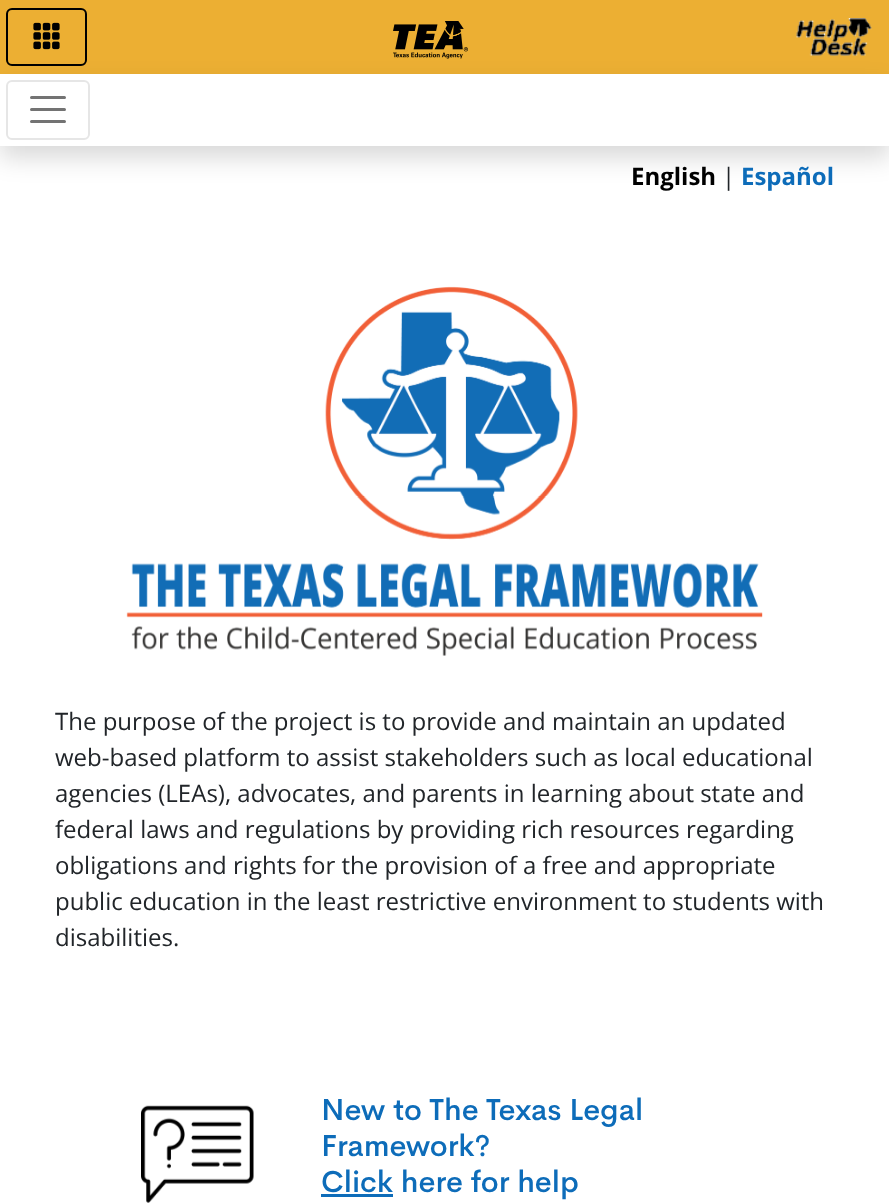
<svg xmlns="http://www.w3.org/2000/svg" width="889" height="1203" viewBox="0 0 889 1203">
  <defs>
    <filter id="blur1" x="-50%" y="-200%" width="200%" height="500%"><feGaussianBlur stdDeviation="12"/></filter>
  </defs>
  <rect width="100%" height="100%" fill="#ffffff"/>
  <rect x="0" y="0" width="889" height="74" fill="#ecaf33"/>
  <rect x="7" y="9" width="79" height="56" rx="5" fill="none" stroke="#000000" stroke-width="2"/>
  <image x="33" y="22" width="27" height="28" href="img1.png"/>
  <image x="393" y="21" width="75" height="38" href="img2.png"/>
  <image x="796" y="18" width="76" height="38" href="img3.png"/>
  <rect x="0" y="86" width="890" height="72" fill="#000000" fill-opacity="0.15" filter="url(#blur1)"/>
  <rect x="0" y="74" width="889" height="72" fill="#ffffff"/>
  <rect x="7" y="81" width="82" height="58" rx="5" fill="none" stroke="#e6e6e6" stroke-width="2"/>
  <path d="M31.5 97.5H64.5M31.5 109.5H64.5M31.5 121.5H64.5" fill="none" stroke="#737373" stroke-width="3" stroke-linecap="round"/>
  <text x="631" y="185" font-family="Open Sans" font-size="24" font-weight="bold" fill="#000000">English</text>
  <text x="722" y="185" font-family="Open Sans" font-size="24" fill="#212529">|</text>
  <text x="741" y="185" font-family="Open Sans" font-size="24" font-weight="bold" fill="#0d6cb9">Español</text>
  <image x="126" y="286" width="637" height="370" href="img4.png"/>
  <text x="55" y="730" font-family="Open Sans" font-size="24" fill="#212529">The purpose of the project is to provide and maintain an updated</text>
  <text x="55" y="766" font-family="Open Sans" font-size="24" fill="#212529">web-based platform to assist stakeholders such as local educational</text>
  <text x="55" y="802" font-family="Open Sans" font-size="24" fill="#212529">agencies (LEAs), advocates, and parents in learning about state and</text>
  <text x="55" y="838" font-family="Open Sans" font-size="24" fill="#212529">federal laws and regulations by providing rich resources regarding</text>
  <text x="55" y="874" font-family="Open Sans" font-size="24" fill="#212529">obligations and rights for the provision of a free and appropriate</text>
  <text x="55" y="910" font-family="Open Sans" font-size="24" fill="#212529">public education in the least restrictive environment to students with</text>
  <text x="55" y="946" font-family="Open Sans" font-size="24" fill="#212529">disabilities.</text>
  <image x="141" y="1105" width="113" height="98" href="img5.png"/>
  <text x="321" y="1120" font-family="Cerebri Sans" font-size="30" font-weight="500" fill="#0d6cb9">New to The Texas Legal</text>
  <text x="321" y="1156" font-family="Cerebri Sans" font-size="30" font-weight="500" fill="#0d6cb9">Framework?</text>
  <rect x="321" y="1194" width="72" height="3" fill="#0d6cb9"/>
  <text x="321" y="1192" font-family="Cerebri Sans" font-size="30" font-weight="500" fill="#0d6cb9">Click here for help</text>
</svg>
